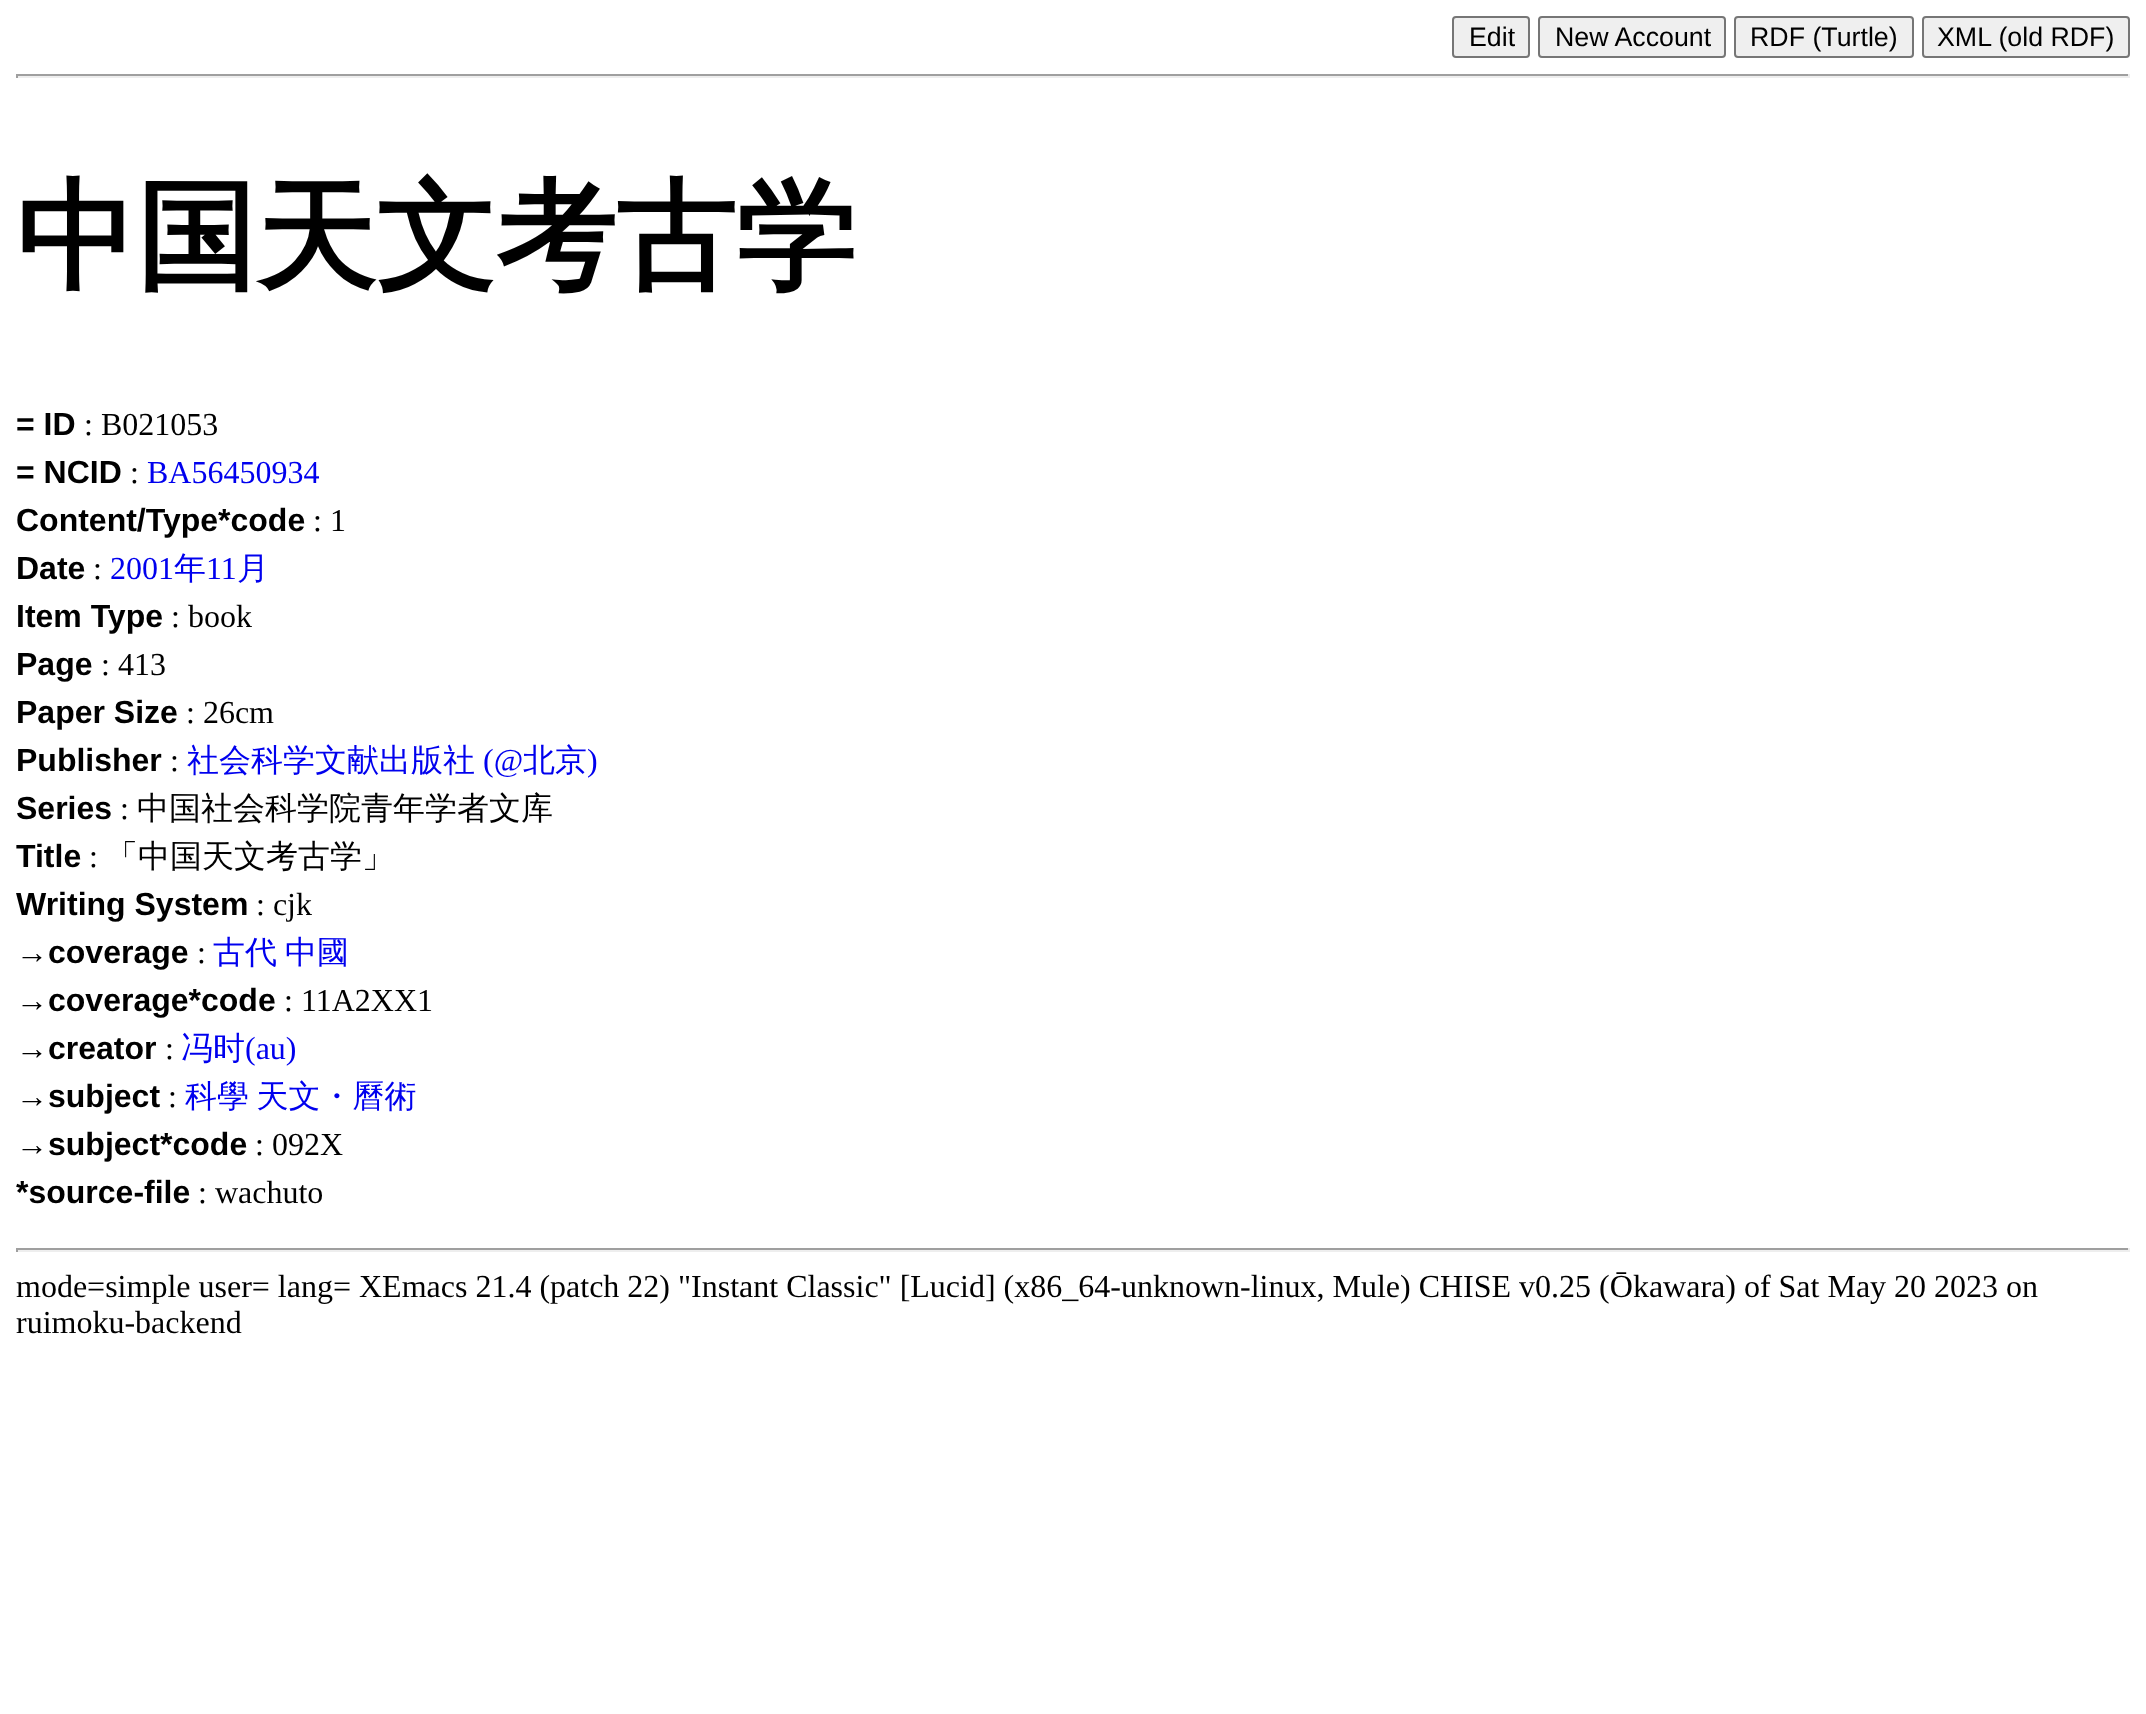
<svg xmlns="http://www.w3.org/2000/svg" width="2146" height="1714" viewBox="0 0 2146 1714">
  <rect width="100%" height="100%" fill="#ffffff"/>
  <rect x="1453" y="17" width="76" height="40" rx="3" fill="#efefef" stroke="#767676" stroke-width="2"/>
  <text x="1469" y="46" font-family="Liberation Sans" font-size="26.75" fill="#000000">Edit</text>
  <rect x="1539" y="17" width="186" height="40" rx="3" fill="#efefef" stroke="#767676" stroke-width="2"/>
  <text x="1555" y="46" font-family="Liberation Sans" font-size="26.75" fill="#000000">New Account</text>
  <rect x="1735" y="17" width="178" height="40" rx="3" fill="#efefef" stroke="#767676" stroke-width="2"/>
  <text x="1750" y="46" font-family="Liberation Sans" font-size="26.75" fill="#000000">RDF (Turtle)</text>
  <rect x="1923" y="17" width="206" height="40" rx="3" fill="#efefef" stroke="#767676" stroke-width="2"/>
  <text x="1937" y="46" font-family="Liberation Sans" font-size="26.75" fill="#000000">XML (old RDF)</text>
  <rect x="16" y="74" width="2114" height="2" fill="#9f9f9f"/>
  <rect x="2128" y="74" width="2" height="4" fill="#eeeeee"/>
  <rect x="16" y="76" width="2114" height="2" fill="#eeeeee"/>
  <rect x="16" y="74" width="2" height="4" fill="#9f9f9f"/>
  <text x="16" y="278" font-family="WenQuanYi Zen Hei" font-size="120" font-weight="bold" fill="#000000">中国天文考古学</text>
  <text x="16" y="435" font-family="Liberation Sans" font-size="32" font-weight="bold" fill="#000000">= ID</text>
  <text x="84" y="435" font-family="Liberation Serif" font-size="32" fill="#000000">: B021053</text>
  <text x="16" y="483" font-family="Liberation Sans" font-size="32" font-weight="bold" fill="#000000">= NCID</text>
  <text x="130" y="483" font-family="Liberation Serif" font-size="32" fill="#000000">:</text>
  <text x="147" y="483" font-family="Liberation Serif" font-size="32" fill="#0000ee">BA56450934</text>
  <text x="16" y="531" font-family="Liberation Sans" font-size="32" font-weight="bold" fill="#000000">Content/Type*code</text>
  <text x="313" y="531" font-family="Liberation Serif" font-size="32" fill="#000000">: 1</text>
  <text x="16" y="579" font-family="Liberation Sans" font-size="32" font-weight="bold" fill="#000000">Date</text>
  <text x="93" y="579" font-family="Liberation Serif" font-size="32" fill="#000000">:</text>
  <text x="110" y="579" font-family="Liberation Serif" font-size="32" fill="#0000ee">2001</text>
  <text x="174" y="579" font-family="WenQuanYi Zen Hei" font-size="32" font-weight="500" fill="#0000ee">年</text>
  <text x="206" y="579" font-family="Liberation Serif" font-size="32" fill="#0000ee">11</text>
  <text x="237" y="579" font-family="WenQuanYi Zen Hei" font-size="32" font-weight="500" fill="#0000ee">月</text>
  <text x="16" y="627" font-family="Liberation Sans" font-size="32" font-weight="bold" fill="#000000">Item Type</text>
  <text x="171" y="627" font-family="Liberation Serif" font-size="32" fill="#000000">: book</text>
  <text x="16" y="675" font-family="Liberation Sans" font-size="32" font-weight="bold" fill="#000000">Page</text>
  <text x="101" y="675" font-family="Liberation Serif" font-size="32" fill="#000000">: 413</text>
  <text x="16" y="723" font-family="Liberation Sans" font-size="32" font-weight="bold" fill="#000000">Paper Size</text>
  <text x="186" y="723" font-family="Liberation Serif" font-size="32" fill="#000000">: 26cm</text>
  <text x="16" y="771" font-family="Liberation Sans" font-size="32" font-weight="bold" fill="#000000">Publisher</text>
  <text x="170" y="771" font-family="Liberation Serif" font-size="32" fill="#000000">:</text>
  <text x="187" y="771" font-family="WenQuanYi Zen Hei" font-size="32" font-weight="500" fill="#0000ee">社会科学文献出版社</text>
  <text x="483" y="771" font-family="Liberation Serif" font-size="32" fill="#0000ee">(@</text>
  <text x="523" y="771" font-family="WenQuanYi Zen Hei" font-size="32" font-weight="500" fill="#0000ee">北京</text>
  <text x="587" y="771" font-family="Liberation Serif" font-size="32" fill="#0000ee">)</text>
  <text x="16" y="819" font-family="Liberation Sans" font-size="32" font-weight="bold" fill="#000000">Series</text>
  <text x="120" y="819" font-family="Liberation Serif" font-size="32" fill="#000000">:</text>
  <text x="137" y="819" font-family="WenQuanYi Zen Hei" font-size="32" font-weight="500" fill="#000000">中国社会科学院青年学者文库</text>
  <text x="16" y="867" font-family="Liberation Sans" font-size="32" font-weight="bold" fill="#000000">Title</text>
  <text x="89" y="867" font-family="Liberation Serif" font-size="32" fill="#000000">:</text>
  <text x="106" y="867" font-family="WenQuanYi Zen Hei" font-size="32" font-weight="500" fill="#000000">「中国天文考古学」</text>
  <text x="16" y="915" font-family="Liberation Sans" font-size="32" font-weight="bold" fill="#000000">Writing System</text>
  <text x="256" y="915" font-family="Liberation Serif" font-size="32" fill="#000000">: cjk</text>
  <text x="16" y="963" font-family="Liberation Sans" font-size="32" font-weight="bold" fill="#000000">→coverage</text>
  <text x="197" y="963" font-family="Liberation Serif" font-size="32" fill="#000000">:</text>
  <text x="213" y="963" font-family="WenQuanYi Zen Hei" font-size="32" font-weight="500" fill="#0000ee">古代</text>
  <text x="285" y="963" font-family="WenQuanYi Zen Hei" font-size="32" font-weight="500" fill="#0000ee">中國</text>
  <text x="16" y="1011" font-family="Liberation Sans" font-size="32" font-weight="bold" fill="#000000">→coverage*code</text>
  <text x="284" y="1011" font-family="Liberation Serif" font-size="32" fill="#000000">: 11A2XX1</text>
  <text x="16" y="1059" font-family="Liberation Sans" font-size="32" font-weight="bold" fill="#000000">→creator</text>
  <text x="165" y="1059" font-family="Liberation Serif" font-size="32" fill="#000000">:</text>
  <text x="181" y="1059" font-family="WenQuanYi Zen Hei" font-size="32" font-weight="500" fill="#0000ee">冯时</text>
  <text x="245" y="1059" font-family="Liberation Serif" font-size="32" fill="#0000ee">(au)</text>
  <text x="16" y="1107" font-family="Liberation Sans" font-size="32" font-weight="bold" fill="#000000">→subject</text>
  <text x="168" y="1107" font-family="Liberation Serif" font-size="32" fill="#000000">:</text>
  <text x="185" y="1107" word-spacing="-2" font-family="WenQuanYi Zen Hei" font-size="32" font-weight="500" fill="#0000ee">科學 天文・曆術</text>
  <text x="16" y="1155" font-family="Liberation Sans" font-size="32" font-weight="bold" fill="#000000">→subject*code</text>
  <text x="255" y="1155" font-family="Liberation Serif" font-size="32" fill="#000000">: 092X</text>
  <text x="16" y="1203" font-family="Liberation Sans" font-size="32" font-weight="bold" fill="#000000">*source-file</text>
  <text x="198" y="1203" font-family="Liberation Serif" font-size="32" fill="#000000">: wachuto</text>
  <rect x="16" y="1248" width="2114" height="2" fill="#9f9f9f"/>
  <rect x="2128" y="1248" width="2" height="4" fill="#eeeeee"/>
  <rect x="16" y="1250" width="2114" height="2" fill="#eeeeee"/>
  <rect x="16" y="1248" width="2" height="4" fill="#9f9f9f"/>
  <text x="16" y="1297" font-family="Liberation Serif" font-size="32" fill="#000000">mode=simple user= lang= XEmacs 21.4 (patch 22) "Instant Classic" [Lucid] (x86_64-unknown-linux, Mule) CHISE v0.25 (Ōkawara) of Sat May 20 2023 on</text>
  <text x="16" y="1333" font-family="Liberation Serif" font-size="32" fill="#000000">ruimoku-backend</text>
</svg>
